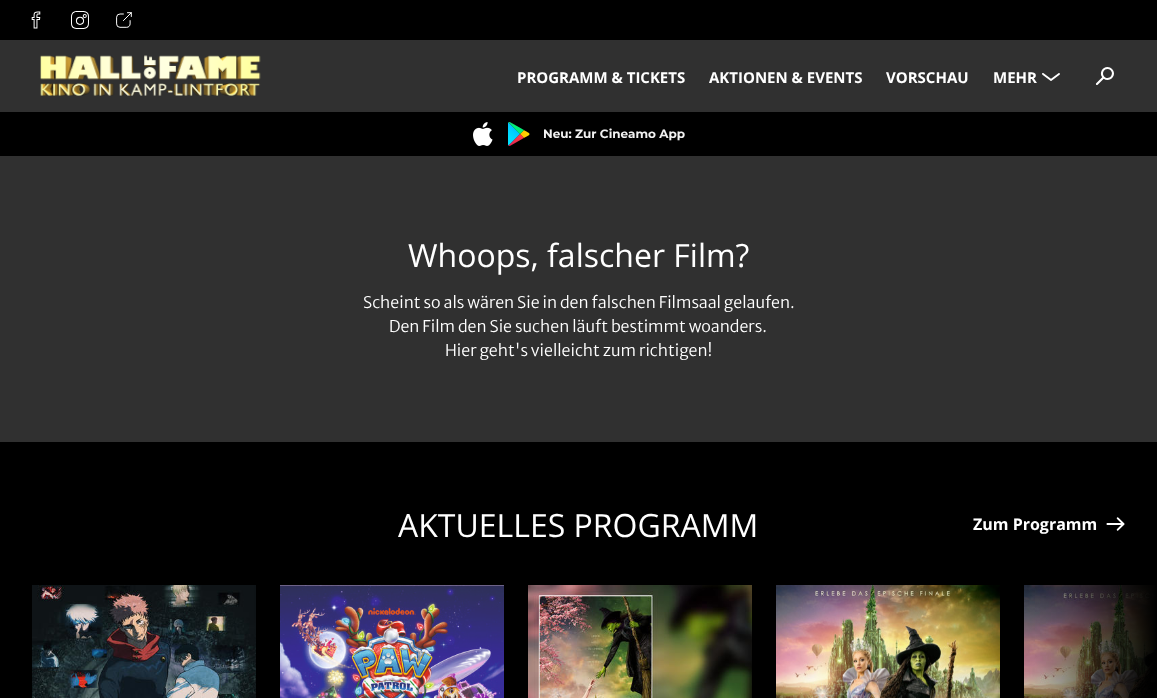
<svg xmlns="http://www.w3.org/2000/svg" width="1157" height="698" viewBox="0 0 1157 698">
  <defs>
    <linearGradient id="g1" gradientUnits="userSpaceOnUse" x1="1157" y1="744" x2="997" y2="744"><stop offset="0" stop-color="#000000"/><stop offset="1" stop-color="#000000" stop-opacity="0"/></linearGradient>
  </defs>
  <rect width="100%" height="100%" fill="#303030"/>
  <rect x="0" y="0" width="1157" height="40" fill="#000000"/>
  <image x="31" y="11" width="10" height="18" href="img1.png"/>
  <image x="71" y="11" width="18" height="18" href="img2.png"/>
  <image x="116" y="12" width="16" height="16" href="img3.png"/>
  <image x="40" y="55" width="221" height="41" href="img4.png"/>
  <text x="517" y="83" font-family="Open Sans" font-size="15" font-weight="bold" fill="#ffffff">PROGRAMM &amp; TICKETS</text>
  <text x="709" y="83" font-family="Open Sans" font-size="15" font-weight="bold" fill="#ffffff">AKTIONEN &amp; EVENTS</text>
  <text x="886" y="83" font-family="Open Sans" font-size="15" font-weight="bold" fill="#ffffff">VORSCHAU</text>
  <text x="993" y="83" font-family="Open Sans" font-size="15" font-weight="bold" fill="#ffffff">MEHR</text>
  <image x="1042" y="73" width="18" height="8" href="img5.png"/>
  <image x="1095" y="67" width="19" height="18" href="img6.png"/>
  <rect x="0" y="112" width="1157" height="44" fill="#000000"/>
  <image x="473" y="122" width="20" height="24" href="img7.png"/>
  <image x="508" y="122" width="22" height="24" href="img8.png"/>
  <text x="543" y="138" font-family="Montserrat" font-size="12" font-weight="100" fill="#f2f2f2">Neu: Zur Cineamo App</text>
  <text x="408" y="267" font-family="Open Sans" font-size="32" fill="#ffffff">Whoops, falscher Film?</text>
  <text x="363" y="308" font-family="Merriweather Sans" font-size="16" font-weight="300" fill="#ffffff">Scheint so als wären Sie in den falschen Filmsaal gelaufen.</text>
  <text x="389" y="332" font-family="Merriweather Sans" font-size="16" font-weight="300" fill="#ffffff">Den Film den Sie suchen läuft bestimmt woanders.</text>
  <text x="445" y="356" font-family="Merriweather Sans" font-size="16" font-weight="300" fill="#ffffff">Hier geht's vielleicht zum richtigen!</text>
  <rect x="0" y="442" width="1157" height="256" fill="#000000"/>
  <text x="398" y="537" font-family="Open Sans" font-size="32" fill="#ffffff">AKTUELLES PROGRAMM</text>
  <text x="973" y="530" font-family="Open Sans" font-size="16" font-weight="bold" fill="#ffffff">Zum Programm</text>
  <image x="1106" y="517" width="19" height="14" href="img9.png"/>
  <image x="32" y="585" width="224" height="113" href="img10.png"/>
  <image x="280" y="585" width="224" height="113" href="img11.png"/>
  <image x="528" y="585" width="224" height="113" href="img12.png"/>
  <image x="776" y="585" width="224" height="113" href="img13.png"/>
  <image x="1024" y="585" width="132" height="113" href="img14.png"/>
  <rect x="1024" y="585" width="132" height="113" fill="url(#g1)"/>
</svg>
